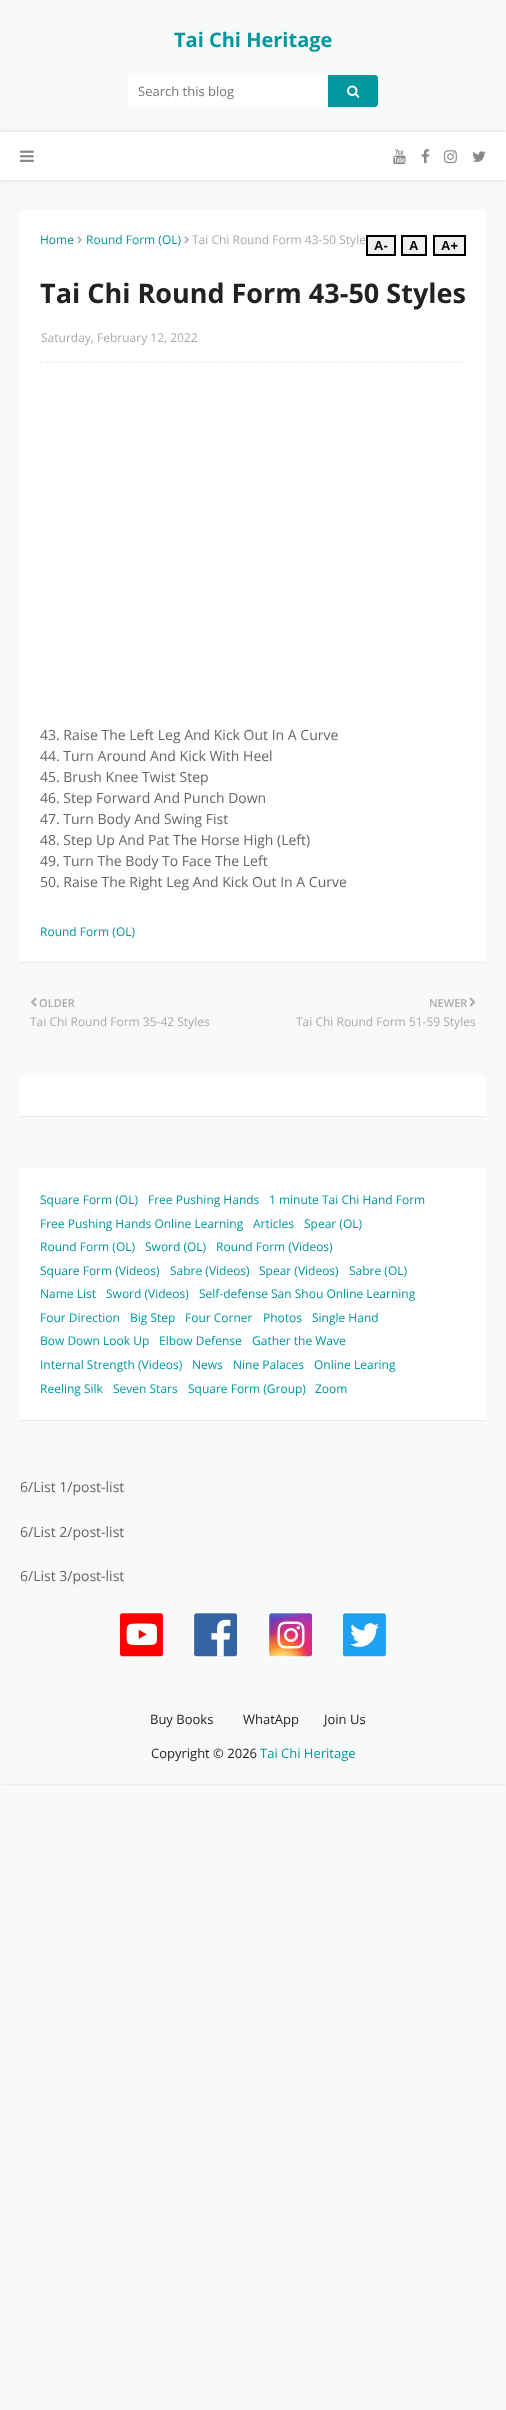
<svg xmlns="http://www.w3.org/2000/svg" width="506" height="2410" viewBox="0 0 506 2410">
  <defs>
    <clipPath id="clip1"><rect x="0" y="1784" width="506" height="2"/></clipPath>
    <filter id="blur1" x="-50%" y="-200%" width="200%" height="500%"><feGaussianBlur stdDeviation="2.5"/></filter>
  </defs>
  <rect width="100%" height="100%" fill="#f8f9f9"/>
  <g clip-path="url(#clip1)">
    <rect x="0" y="0" width="506" height="1784" fill="#000000" fill-opacity="0.1" filter="url(#blur1)"/>
  </g>
  <text x="174" y="47" font-family="Open Sans" font-size="20" font-weight="bold" fill="#00979d">Tai Chi Heritage</text>
  <path d="M131 75H328V107H131C129.5 107 128 105.5 128 104V78C128 76.5 129.5 75 131 75Z" fill="#ffffff"/>
  <text x="138" y="96" font-family="Open Sans" font-size="13" fill="#777777">Search this blog</text>
  <path d="M328 75H375C376.5 75 378 76.5 378 78V104C378 105.5 376.5 107 375 107H328Z" fill="#00979d"/>
  <image x="347" y="85" width="13" height="13" href="img1.png"/>
  <rect x="0" y="132" width="506" height="48" fill="#000000" fill-opacity="0.12" filter="url(#blur1)"/>
  <rect x="0" y="132" width="506" height="48" fill="#ffffff"/>
  <image x="20" y="150" width="14" height="12" href="img2.png"/>
  <image x="393" y="149" width="13" height="16" href="img3.png"/>
  <image x="421" y="149" width="8" height="15" href="img4.png"/>
  <image x="444" y="150" width="13" height="14" href="img5.png"/>
  <image x="472" y="151" width="14" height="11" href="img6.png"/>
  <rect x="20" y="210" width="466" height="752" fill="#ffffff"/>
  <rect x="20" y="962" width="466" height="1" fill="#ebebeb"/>
  <text x="40" y="244" font-family="Open Sans" font-size="12" fill="#00979d">Home</text>
  <image x="77" y="236" width="5" height="8" href="img7.png"/>
  <text x="86" y="244" font-family="Open Sans" font-size="12" fill="#00979d">Round Form (OL)</text>
  <image x="184" y="236" width="5" height="8" href="img7.png"/>
  <text x="192" y="244" font-family="Open Sans" font-size="12" fill="#aaaaaa">Tai Chi Round Form 43-50 Style</text>
  <rect x="367" y="236" width="28" height="19" fill="#efefef" stroke="#000000" stroke-width="2"/>
  <text x="374" y="250" font-family="Liberation Sans" font-size="13" font-weight="bold" fill="#000000">A-</text>
  <rect x="402" y="236" width="24" height="19" fill="#efefef" stroke="#000000" stroke-width="2"/>
  <text x="409" y="250" font-family="Liberation Sans" font-size="13" font-weight="bold" fill="#000000">A</text>
  <rect x="434" y="236" width="31" height="19" fill="#efefef" stroke="#000000" stroke-width="2"/>
  <text x="441" y="250" font-family="Liberation Sans" font-size="13" font-weight="bold" fill="#000000">A+</text>
  <text x="40" y="303" font-family="Open Sans" font-size="27" font-weight="bold" fill="#222222">Tai Chi Round Form 43-50 Styles</text>
  <text x="41" y="342" font-family="Open Sans" font-size="12" fill="#aaaaaa">Saturday, February 12, 2022</text>
  <path d="M40 362.5H466" fill="none" stroke="#ebebeb" stroke-dasharray="3 1.98"/>
  <text x="40" y="740" font-family="Open Sans" font-size="14" fill="#656565">43. Raise The Left Leg And Kick Out In A Curve</text>
  <text x="40" y="761" font-family="Open Sans" font-size="14" fill="#656565">44. Turn Around And Kick With Heel</text>
  <text x="40" y="782" font-family="Open Sans" font-size="14" fill="#656565">45. Brush Knee Twist Step</text>
  <text x="40" y="803" font-family="Open Sans" font-size="14" fill="#656565">46. Step Forward And Punch Down</text>
  <text x="40" y="824" font-family="Open Sans" font-size="14" fill="#656565">47. Turn Body And Swing Fist</text>
  <text x="40" y="845" font-family="Open Sans" font-size="14" fill="#656565">48. Step Up And Pat The Horse High (Left)</text>
  <text x="40" y="866" font-family="Open Sans" font-size="14" fill="#656565">49. Turn The Body To Face The Left</text>
  <text x="40" y="887" font-family="Open Sans" font-size="14" fill="#656565">50. Raise The Right Leg And Kick Out In A Curve</text>
  <text x="40" y="936" font-family="Open Sans" font-size="12" fill="#00979d">Round Form (OL)</text>
  <image x="31" y="997" width="6" height="10" href="img8.png"/>
  <text x="39" y="1007" font-family="Open Sans" font-size="11" font-weight="600" fill="#aaaaaa">OLDER</text>
  <text x="30" y="1026" font-family="Open Sans" font-size="12" fill="#aaaaaa">Tai Chi Round Form 35-42 Styles</text>
  <text x="429" y="1007" font-family="Open Sans" font-size="11" font-weight="600" fill="#aaaaaa">NEWER</text>
  <image x="469" y="997" width="7" height="10" href="img9.png"/>
  <text x="296" y="1026" font-family="Open Sans" font-size="12" fill="#aaaaaa">Tai Chi Round Form 51-59 Styles</text>
  <rect x="20" y="1076" width="466" height="40" fill="#ffffff"/>
  <rect x="20" y="1116" width="466" height="1" fill="#ebebeb"/>
  <rect x="20" y="1168" width="466" height="252" fill="#ffffff"/>
  <rect x="20" y="1420" width="466" height="1" fill="#ebebeb"/>
  <text x="40" y="1204" font-family="Open Sans" font-size="12" fill="#00979d">Square Form (OL)</text>
  <text x="148" y="1204" font-family="Open Sans" font-size="12" fill="#00979d">Free Pushing Hands</text>
  <text x="269" y="1204" font-family="Open Sans" font-size="12" fill="#00979d">1 minute Tai Chi Hand Form</text>
  <text x="40" y="1228" font-family="Open Sans" font-size="12" fill="#00979d">Free Pushing Hands Online Learning</text>
  <text x="253" y="1228" font-family="Open Sans" font-size="12" fill="#00979d">Articles</text>
  <text x="304" y="1228" font-family="Open Sans" font-size="12" fill="#00979d">Spear (OL)</text>
  <text x="40" y="1251" font-family="Open Sans" font-size="12" fill="#00979d">Round Form (OL)</text>
  <text x="145" y="1251" font-family="Open Sans" font-size="12" fill="#00979d">Sword (OL)</text>
  <text x="216" y="1251" font-family="Open Sans" font-size="12" fill="#00979d">Round Form (Videos)</text>
  <text x="40" y="1275" font-family="Open Sans" font-size="12" fill="#00979d">Square Form (Videos)</text>
  <text x="170" y="1275" font-family="Open Sans" font-size="12" fill="#00979d">Sabre (Videos)</text>
  <text x="259" y="1275" font-family="Open Sans" font-size="12" fill="#00979d">Spear (Videos)</text>
  <text x="349" y="1275" font-family="Open Sans" font-size="12" fill="#00979d">Sabre (OL)</text>
  <text x="40" y="1298" font-family="Open Sans" font-size="12" fill="#00979d">Name List</text>
  <text x="106" y="1298" font-family="Open Sans" font-size="12" fill="#00979d">Sword (Videos)</text>
  <text x="199" y="1298" font-family="Open Sans" font-size="12" fill="#00979d">Self-defense San Shou Online Learning</text>
  <text x="40" y="1322" font-family="Open Sans" font-size="12" fill="#00979d">Four Direction</text>
  <text x="130" y="1322" font-family="Open Sans" font-size="12" fill="#00979d">Big Step</text>
  <text x="185" y="1322" font-family="Open Sans" font-size="12" fill="#00979d">Four Corner</text>
  <text x="263" y="1322" font-family="Open Sans" font-size="12" fill="#00979d">Photos</text>
  <text x="312" y="1322" font-family="Open Sans" font-size="12" fill="#00979d">Single Hand</text>
  <text x="40" y="1345" font-family="Open Sans" font-size="12" fill="#00979d">Bow Down Look Up</text>
  <text x="159" y="1345" font-family="Open Sans" font-size="12" fill="#00979d">Elbow Defense</text>
  <text x="252" y="1345" font-family="Open Sans" font-size="12" fill="#00979d">Gather the Wave</text>
  <text x="40" y="1369" font-family="Open Sans" font-size="12" fill="#00979d">Internal Strength (Videos)</text>
  <text x="192" y="1369" font-family="Open Sans" font-size="12" fill="#00979d">News</text>
  <text x="233" y="1369" font-family="Open Sans" font-size="12" fill="#00979d">Nine Palaces</text>
  <text x="314" y="1369" font-family="Open Sans" font-size="12" fill="#00979d">Online Learing</text>
  <text x="40" y="1393" font-family="Open Sans" font-size="12" fill="#00979d">Reeling Silk</text>
  <text x="113" y="1393" font-family="Open Sans" font-size="12" fill="#00979d">Seven Stars</text>
  <text x="188" y="1393" font-family="Open Sans" font-size="12" fill="#00979d">Square Form (Group)</text>
  <text x="315" y="1393" font-family="Open Sans" font-size="12" fill="#00979d">Zoom</text>
  <text x="20" y="1492" font-family="Open Sans" font-size="14" fill="#656565">6/List 1/post-list</text>
  <text x="20" y="1537" font-family="Open Sans" font-size="14" fill="#656565">6/List 2/post-list</text>
  <text x="20" y="1581" font-family="Open Sans" font-size="14" fill="#656565">6/List 3/post-list</text>
  <image x="120" y="1611" width="43" height="47" href="img10.png"/>
  <image x="194" y="1611" width="43" height="47" href="img11.png"/>
  <image x="269" y="1611" width="43" height="47" href="img12.png"/>
  <image x="343" y="1611" width="43" height="47" href="img13.png"/>
  <text x="150" y="1724" font-family="Open Sans" font-size="13" fill="#222222">Buy Books</text>
  <text x="243" y="1724" font-family="Open Sans" font-size="13" fill="#222222">WhatApp</text>
  <text x="324" y="1724" font-family="Open Sans" font-size="13" fill="#222222">Join Us</text>
  <text x="151" y="1758" font-family="Open Sans" font-size="13" fill="#222222">Copyright © 2026</text>
  <text x="260" y="1758" font-family="Open Sans" font-size="13" fill="#00979d">Tai Chi Heritage</text>
</svg>
